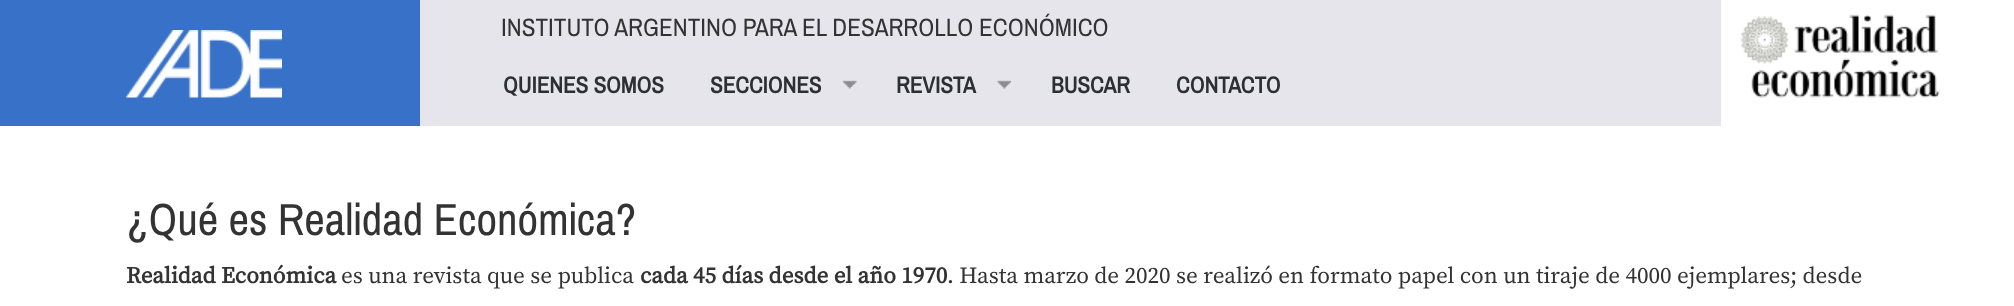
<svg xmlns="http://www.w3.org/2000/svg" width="2014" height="306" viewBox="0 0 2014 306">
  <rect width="100%" height="100%" fill="#ffffff"/>
  <rect x="420" y="0" width="1301" height="126" fill="#e5e5eb"/>
  <rect x="0" y="0" width="420" height="126" fill="#3771c8"/>
  <image x="126" y="30" width="156" height="68" href="img1.png"/>
  <text x="501" y="36" font-family="Archivo Narrow" font-size="25.2" fill="#333333">INSTITUTO ARGENTINO PARA EL DESARROLLO ECONÓMICO</text>
  <text x="503" y="93" font-family="Archivo Narrow" font-size="23.1" font-weight="bold" fill="#2c2f33">QUIENES SOMOS</text>
  <text x="710" y="93" font-family="Archivo Narrow" font-size="23.1" font-weight="bold" fill="#2c2f33">SECCIONES</text>
  <image x="842" y="80" width="15" height="9" href="img2.png"/>
  <text x="896" y="93" font-family="Archivo Narrow" font-size="23.1" font-weight="bold" fill="#2c2f33">REVISTA</text>
  <image x="997" y="80" width="14" height="9" href="img3.png"/>
  <text x="1051" y="93" font-family="Archivo Narrow" font-size="23.1" font-weight="bold" fill="#2c2f33">BUSCAR</text>
  <text x="1176" y="93" font-family="Archivo Narrow" font-size="23.1" font-weight="bold" fill="#2c2f33">CONTACTO</text>
  <image x="1740" y="14" width="200" height="84" href="img4.png"/>
  <text x="126" y="235" font-family="Archivo Narrow" font-size="45" fill="#333333">¿Qué es Realidad Económica?</text>
  <text x="126" y="283" font-family="Source Serif Pro" font-size="23.1" font-weight="bold" fill="#333333">Realidad Económica</text>
  <text x="341" y="283" font-family="Source Serif Pro" font-size="23.1" fill="#333333">es una revista que se publica</text>
  <text x="640" y="283" font-family="Source Serif Pro" font-size="23.1" font-weight="bold" fill="#333333">cada 45 días desde el año 1970</text>
  <text x="947" y="283" font-family="Source Serif Pro" font-size="23.1" fill="#333333">. Hasta marzo de 2020 se realizó en formato papel con un tiraje de 4000 ejemplares; desde</text>
</svg>
